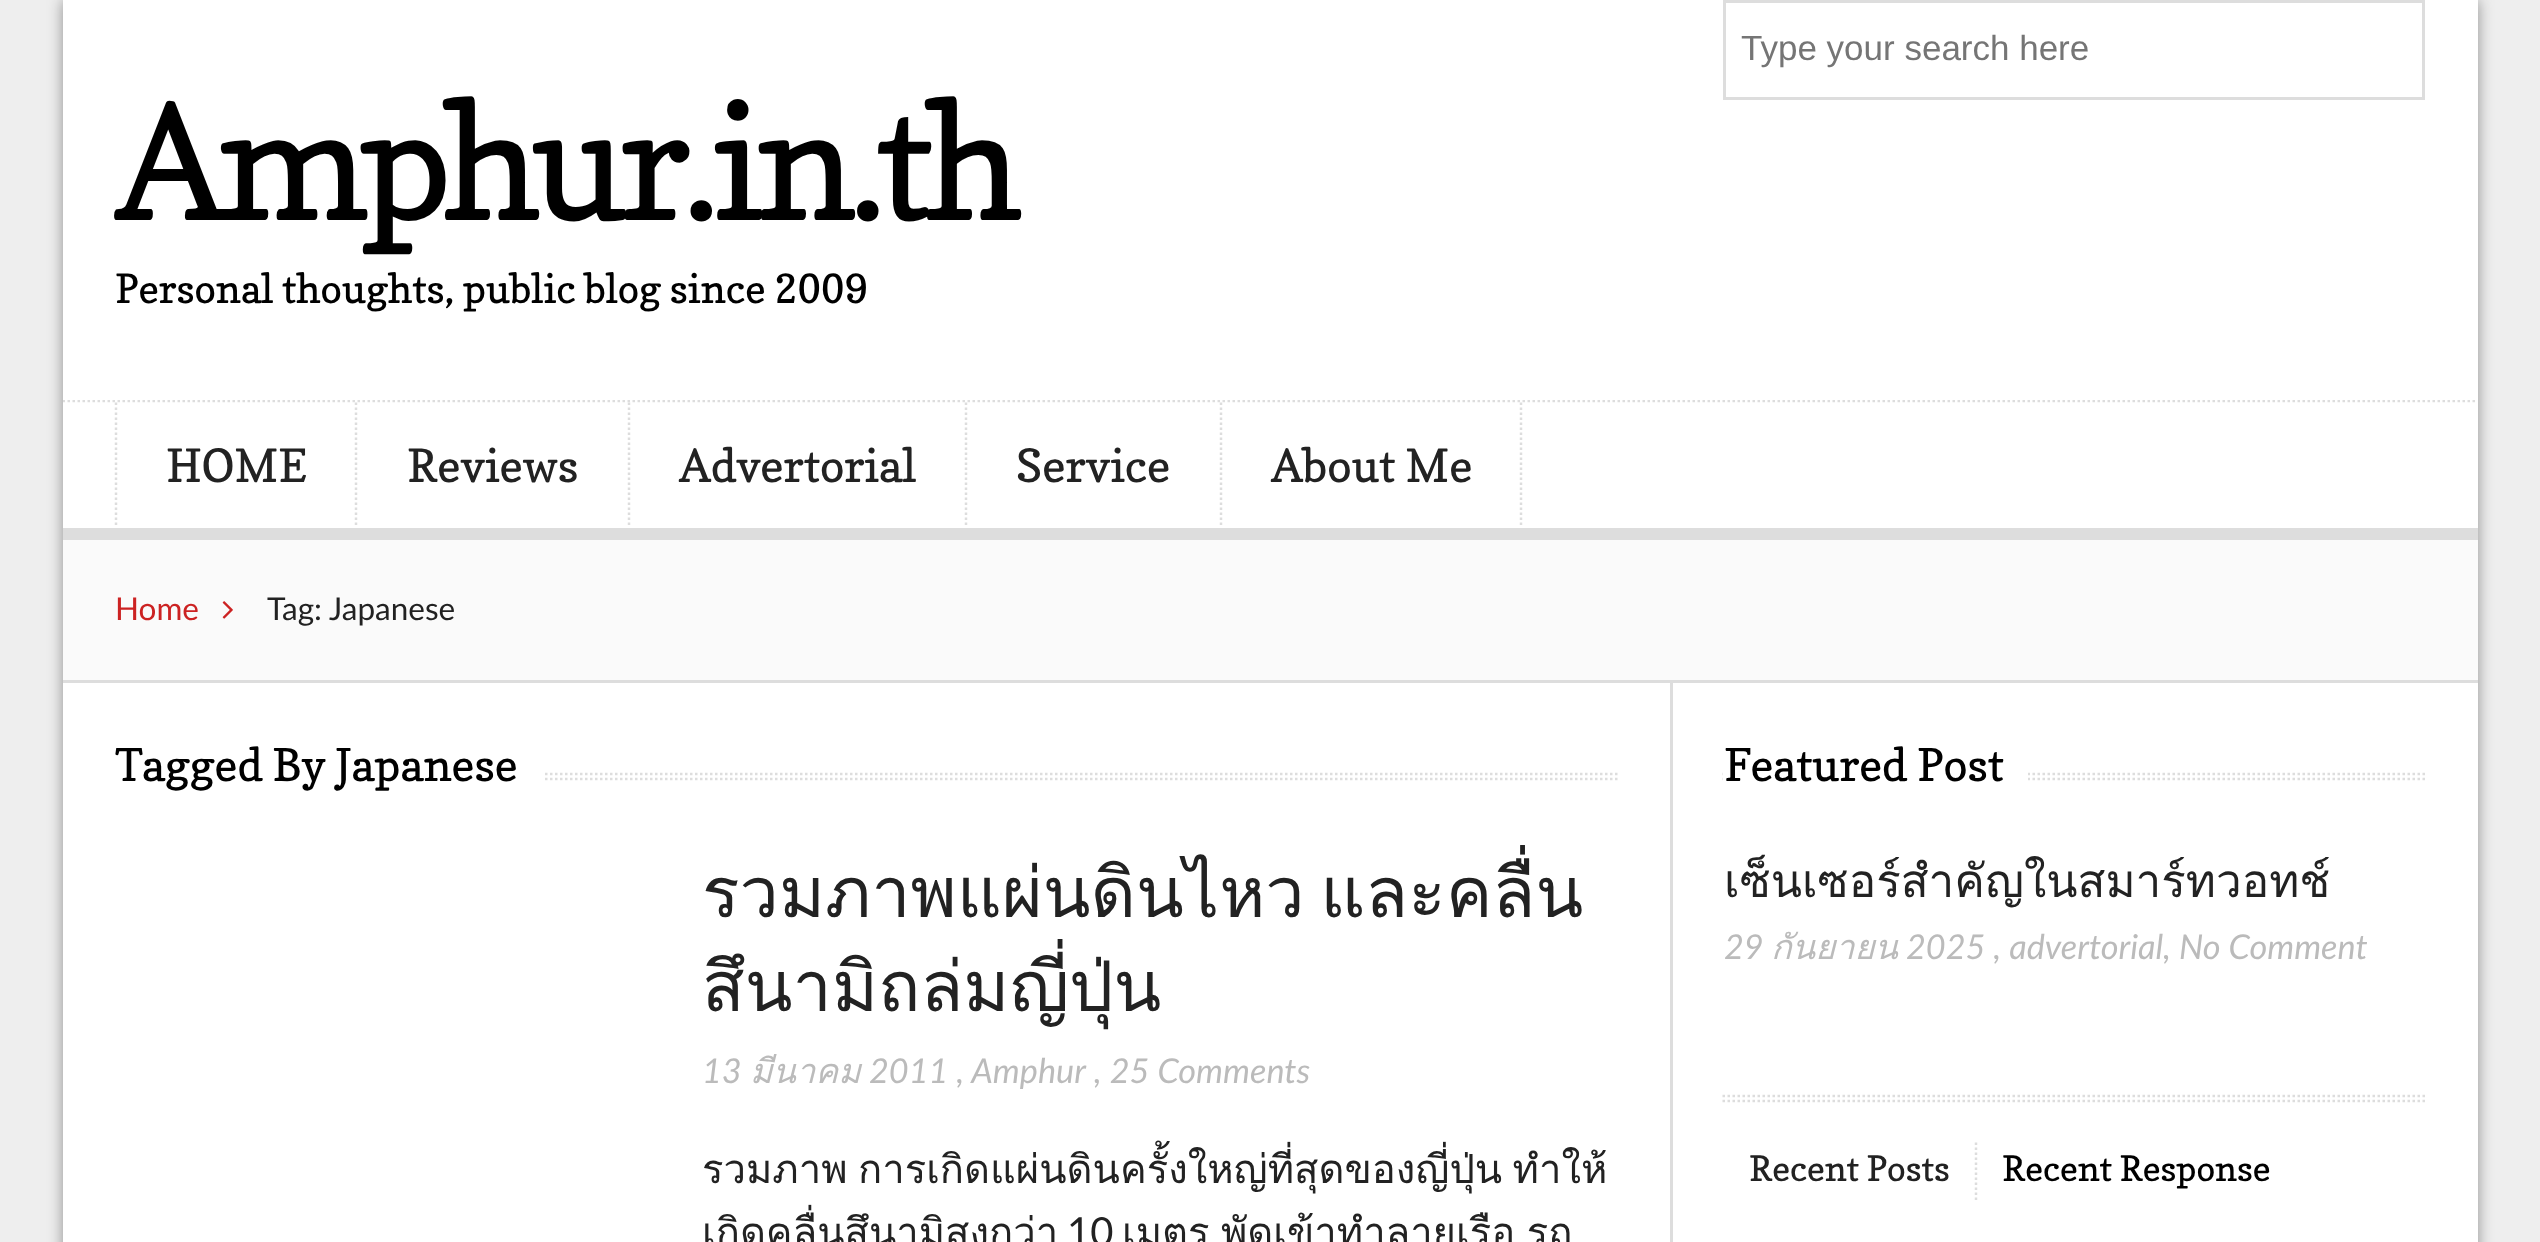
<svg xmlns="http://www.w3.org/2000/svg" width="2540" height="1242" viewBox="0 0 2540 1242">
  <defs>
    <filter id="blur1" x="-50%" y="-200%" width="200%" height="500%"><feGaussianBlur stdDeviation="7.5"/></filter>
    <clipPath id="clip1"><rect x="63" y="0" width="2415" height="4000"/></clipPath>
  </defs>
  <rect width="100%" height="100%" fill="#eeeeee"/>
  <rect x="63" y="0" width="2415" height="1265" fill="#000000" fill-opacity="0.4" filter="url(#blur1)"/>
  <rect x="63" y="400" width="2415" height="842" fill="#ffffff"/>
  <g clip-path="url(#clip1)">
    <path d="M62.5 401H2477.5" fill="none" stroke="#dddddd" stroke-width="2.5" stroke-dasharray="2.5 2.5"/>
  </g>
  <rect x="63" y="0" width="2415" height="400" fill="#ffffff"/>
  <rect x="1724.5" y="1.5" width="699" height="97" fill="none" stroke="#dddddd" stroke-width="3"/>
  <text x="1741" y="60" font-family="Liberation Sans" font-size="35" fill="#757575">Type your search here</text>
  <text x="115" y="220" font-family="Copse" font-size="160" letter-spacing="-8" fill="#000000">Amphur.in.th</text>
  <text x="115" y="303" font-family="Copse" font-size="40" fill="#000000">Personal thoughts, public blog since 2009</text>
  <path d="M116 402.5V527.5" fill="none" stroke="#dddddd" stroke-width="2.5" stroke-dasharray="2.5 2.5"/>
  <text x="166" y="482" font-family="Copse" font-size="45.75" fill="#222222">HOME</text>
  <path d="M356 402.5V527.5" fill="none" stroke="#dddddd" stroke-width="2.5" stroke-dasharray="2.5 2.5"/>
  <text x="407" y="482" font-family="Copse" font-size="45.75" fill="#222222">Reviews</text>
  <path d="M629 402.5V527.5" fill="none" stroke="#dddddd" stroke-width="2.5" stroke-dasharray="2.5 2.5"/>
  <text x="679" y="482" font-family="Copse" font-size="45.75" fill="#222222">Advertorial</text>
  <path d="M966 402.5V527.5" fill="none" stroke="#dddddd" stroke-width="2.5" stroke-dasharray="2.5 2.5"/>
  <text x="1016" y="482" font-family="Copse" font-size="45.75" fill="#222222">Service</text>
  <path d="M1521 402.5V527.5" fill="none" stroke="#dddddd" stroke-width="2.5" stroke-dasharray="2.5 2.5"/>
  <path d="M1221 402.5V527.5" fill="none" stroke="#dddddd" stroke-width="2.5" stroke-dasharray="2.5 2.5"/>
  <text x="1271" y="482" font-family="Copse" font-size="45.75" fill="#222222">About Me</text>
  <rect x="63" y="528" width="2415" height="12" fill="#dddddd"/>
  <rect x="63" y="540" width="2415" height="140" fill="#fafafa"/>
  <rect x="63" y="680" width="2415" height="3" fill="#dddddd"/>
  <text x="115" y="620" font-family="Lato" font-size="31.5" fill="#cc2222">Home</text>
  <image x="222" y="601" width="11" height="18" href="img1.png"/>
  <text x="267" y="620" font-family="Lato" font-size="31.5" fill="#222222">Tag: Japanese</text>
  <path d="M115 774H1620" fill="none" stroke="#dddddd" stroke-width="2.5" stroke-dasharray="2.5 2.5"/>
  <path d="M115 779H1620" fill="none" stroke="#dddddd" stroke-width="2.5" stroke-dasharray="2.5 2.5"/>
  <rect x="115" y="772" width="428" height="9" fill="#ffffff"/>
  <text x="115" y="781" font-family="Copse" font-size="45" fill="#000000">Tagged By Japanese</text>
  <text x="702" y="917" word-spacing="-8" font-family="Loma" font-size="70" fill="#222222">รวมภาพแผ่นดินไหว และคลื่น</text>
  <text x="702" y="1011" font-family="Loma" font-size="70" fill="#222222">สึนามิถล่มญี่ปุ่น</text>
  <text x="702" y="1083" font-family="Lato" font-size="34.25" font-style="italic" fill="#bbbbbb">13</text>
  <text x="750" y="1083" font-family="Loma" font-size="34.25" font-style="italic" fill="#bbbbbb">มีนาคม</text>
  <text x="869" y="1083" font-family="Lato" font-size="34.25" font-style="italic" fill="#bbbbbb">2011 , Amphur</text>
  <text x="1094" y="1083" font-family="Lato" font-size="34.25" font-style="italic" fill="#bbbbbb">, 25 Comments</text>
  <text x="702" y="1183" word-spacing="-3" font-family="Loma" font-size="40" fill="#222222">รวมภาพ การเกิดแผ่นดินครั้งใหญ่ที่สุดของญี่ปุ่น ทำให้</text>
  <text x="702" y="1246" font-family="Loma" font-size="40" fill="#222222">เกิดคลื่นสึนามิสูงกว่า</text>
  <text x="1067" y="1246" font-family="Lato" font-size="40" fill="#222222">10</text>
  <text x="1122" y="1246" word-spacing="-2" font-family="Loma" font-size="40" fill="#222222">เมตร พัดเข้าทำลายเรือ รถ</text>
  <rect x="1670" y="683" width="3" height="559" fill="#dddddd"/>
  <path d="M1722.5 774H2425" fill="none" stroke="#dddddd" stroke-width="2.5" stroke-dasharray="2.5 2.5"/>
  <path d="M1722.5 779H2425" fill="none" stroke="#dddddd" stroke-width="2.5" stroke-dasharray="2.5 2.5"/>
  <rect x="1723" y="772" width="305" height="9" fill="#ffffff"/>
  <text x="1724" y="781" font-family="Copse" font-size="45" fill="#000000">Featured Post</text>
  <text x="1724" y="897" font-family="Loma" font-size="45.75" fill="#222222">เซ็นเซอร์สำคัญในสมาร์ทวอทช์</text>
  <text x="1724" y="959" font-family="Lato" font-size="34.25" font-style="italic" fill="#bbbbbb">29</text>
  <text x="1771" y="959" font-family="Loma" font-size="34.25" font-style="italic" fill="#bbbbbb">กันยายน</text>
  <text x="1906" y="959" font-family="Lato" font-size="34.25" font-style="italic" fill="#bbbbbb">2025 , advertorial, No Comment</text>
  <path d="M1722.5 1096H2425" fill="none" stroke="#dddddd" stroke-width="2.5" stroke-dasharray="2.5 2.5"/>
  <path d="M1722.5 1101H2425" fill="none" stroke="#dddddd" stroke-width="2.5" stroke-dasharray="2.5 2.5"/>
  <text x="1749" y="1181" font-family="Copse" font-size="35" fill="#222222">Recent Posts</text>
  <path d="M1976 1142.5V1202.5" fill="none" stroke="#dddddd" stroke-width="2.5" stroke-dasharray="2.5 2.5"/>
  <text x="2002" y="1181" font-family="Copse" font-size="35" fill="#000000">Recent Response</text>
</svg>
